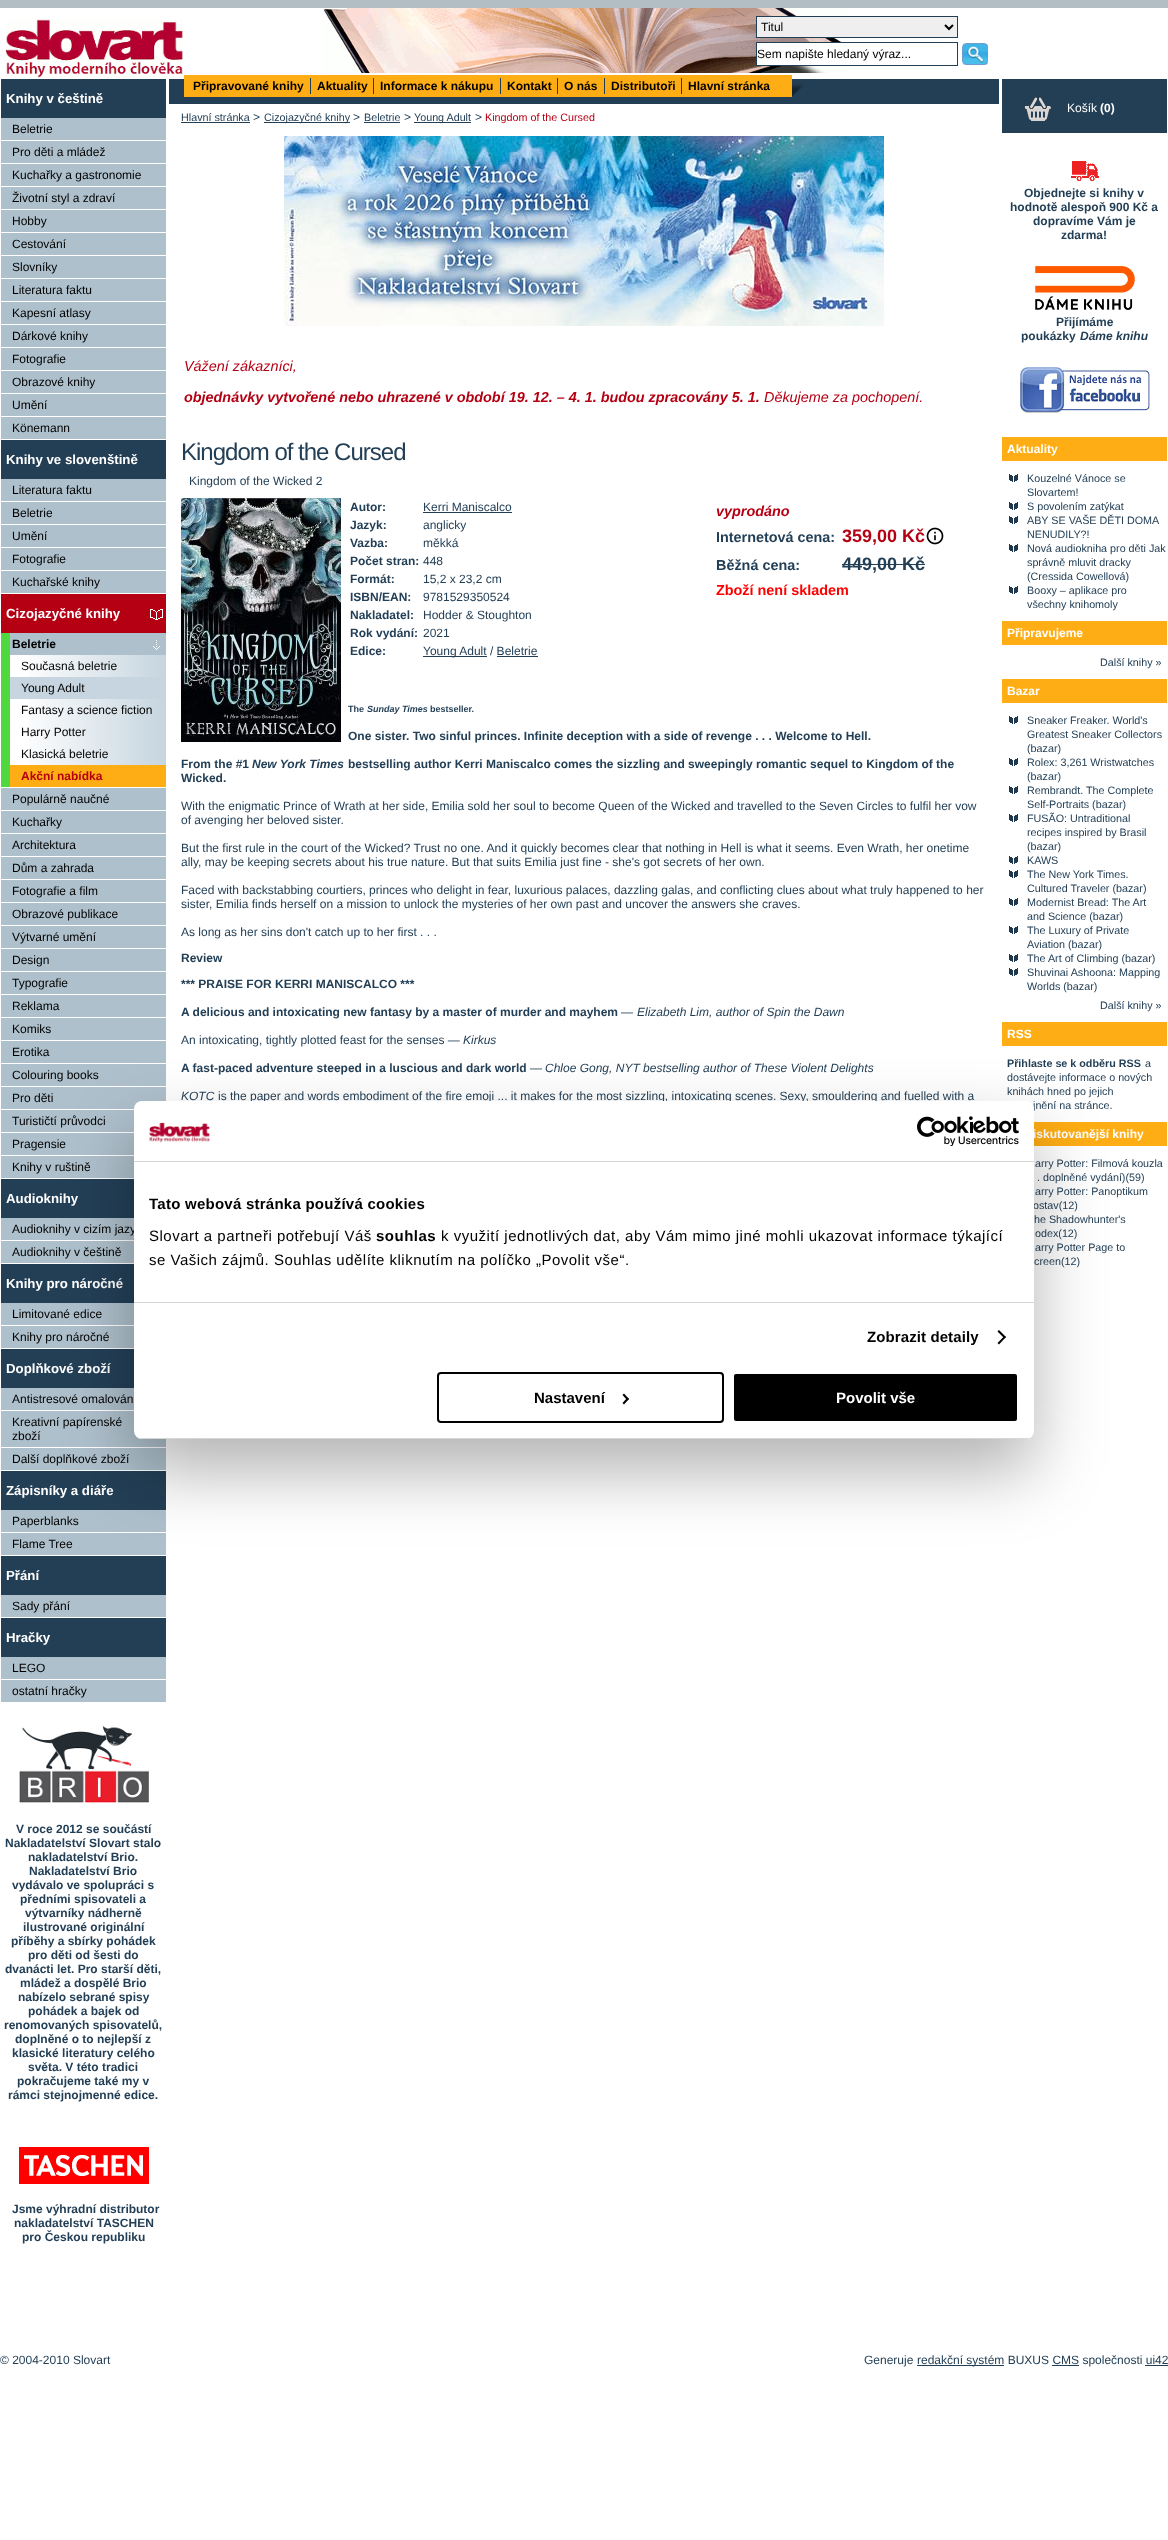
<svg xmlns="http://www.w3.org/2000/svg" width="1168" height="2540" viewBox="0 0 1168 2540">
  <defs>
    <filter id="blur1" x="-50%" y="-200%" width="200%" height="500%"><feGaussianBlur stdDeviation="34"/></filter>
    <clipPath id="clip1"><rect x="134" y="1101" width="900" height="338" rx="8"/></clipPath>
  </defs>
  <rect width="100%" height="100%" fill="#ffffff"/>
  <image x="323" y="8" width="524" height="65" href="img1.png"/>
  <rect x="0" y="0" width="1168" height="8" fill="#b2bdc4"/>
  <image x="5" y="19" width="178" height="59" href="img2.png"/>
  <rect x="756.5" y="16.5" width="201" height="21" fill="#efefef" stroke="#233f56"/>
  <path d="M945 25L949 29L953 25" fill="none" stroke="#000000" stroke-width="2"/>
  <text x="761" y="31" font-family="Liberation Sans" font-size="12" fill="#000000">Titul</text>
  <rect x="757" y="43" width="90" height="22" fill="#ffffff"/>
  <rect x="756.5" y="42.5" width="201" height="23" fill="none" stroke="#233f56"/>
  <text x="757" y="58" font-family="Liberation Sans" font-size="12" fill="#000000">Sem napište hledaný výraz...</text>
  <image x="962" y="43" width="26" height="22" href="img3.png"/>
  <rect x="1" y="79" width="165" height="39" fill="#233f56"/>
  <text x="6" y="103" font-family="Liberation Sans" font-size="13.25" font-weight="bold" fill="#ffffff">Knihy v češtině</text>
  <rect x="1" y="118" width="165" height="22" fill="#aec0cc"/>
  <text x="12" y="133" font-family="Liberation Sans" font-size="12" fill="#000000">Beletrie</text>
  <rect x="1" y="141" width="165" height="22" fill="#aec0cc"/>
  <text x="12" y="156" font-family="Liberation Sans" font-size="12" fill="#000000">Pro děti a mládež</text>
  <rect x="1" y="164" width="165" height="22" fill="#aec0cc"/>
  <text x="12" y="179" font-family="Liberation Sans" font-size="12" fill="#000000">Kuchařky a gastronomie</text>
  <rect x="1" y="187" width="165" height="22" fill="#aec0cc"/>
  <text x="12" y="202" font-family="Liberation Sans" font-size="12" fill="#000000">Životní styl a zdraví</text>
  <rect x="1" y="210" width="165" height="22" fill="#aec0cc"/>
  <text x="12" y="225" font-family="Liberation Sans" font-size="12" fill="#000000">Hobby</text>
  <rect x="1" y="233" width="165" height="22" fill="#aec0cc"/>
  <text x="12" y="248" font-family="Liberation Sans" font-size="12" fill="#000000">Cestování</text>
  <rect x="1" y="256" width="165" height="22" fill="#aec0cc"/>
  <text x="12" y="271" font-family="Liberation Sans" font-size="12" fill="#000000">Slovníky</text>
  <rect x="1" y="279" width="165" height="22" fill="#aec0cc"/>
  <text x="12" y="294" font-family="Liberation Sans" font-size="12" fill="#000000">Literatura faktu</text>
  <rect x="1" y="302" width="165" height="22" fill="#aec0cc"/>
  <text x="12" y="317" font-family="Liberation Sans" font-size="12" fill="#000000">Kapesní atlasy</text>
  <rect x="1" y="325" width="165" height="22" fill="#aec0cc"/>
  <text x="12" y="340" font-family="Liberation Sans" font-size="12" fill="#000000">Dárkové knihy</text>
  <rect x="1" y="348" width="165" height="22" fill="#aec0cc"/>
  <text x="12" y="363" font-family="Liberation Sans" font-size="12" fill="#000000">Fotografie</text>
  <rect x="1" y="371" width="165" height="22" fill="#aec0cc"/>
  <text x="12" y="386" font-family="Liberation Sans" font-size="12" fill="#000000">Obrazové knihy</text>
  <rect x="1" y="394" width="165" height="22" fill="#aec0cc"/>
  <text x="12" y="409" font-family="Liberation Sans" font-size="12" fill="#000000">Umění</text>
  <rect x="1" y="417" width="165" height="22" fill="#aec0cc"/>
  <text x="12" y="432" font-family="Liberation Sans" font-size="12" fill="#000000">Könemann</text>
  <rect x="1" y="440" width="165" height="39" fill="#233f56"/>
  <text x="6" y="464" font-family="Liberation Sans" font-size="13.25" font-weight="bold" fill="#ffffff">Knihy ve slovenštině</text>
  <rect x="1" y="479" width="165" height="22" fill="#aec0cc"/>
  <text x="12" y="494" font-family="Liberation Sans" font-size="12" fill="#000000">Literatura faktu</text>
  <rect x="1" y="502" width="165" height="22" fill="#aec0cc"/>
  <text x="12" y="517" font-family="Liberation Sans" font-size="12" fill="#000000">Beletrie</text>
  <rect x="1" y="525" width="165" height="22" fill="#aec0cc"/>
  <text x="12" y="540" font-family="Liberation Sans" font-size="12" fill="#000000">Umění</text>
  <rect x="1" y="548" width="165" height="22" fill="#aec0cc"/>
  <text x="12" y="563" font-family="Liberation Sans" font-size="12" fill="#000000">Fotografie</text>
  <rect x="1" y="571" width="165" height="22" fill="#aec0cc"/>
  <text x="12" y="586" font-family="Liberation Sans" font-size="12" fill="#000000">Kuchařské knihy</text>
  <rect x="1" y="594" width="165" height="39" fill="#b50014"/>
  <image x="150" y="609" width="13" height="11" href="img4.png"/>
  <text x="6" y="618" font-family="Liberation Sans" font-size="13.25" font-weight="bold" fill="#ffffff">Cizojazyčné knihy</text>
  <rect x="10" y="633" width="156" height="22" fill="#aec0cc"/>
  <image x="153" y="640" width="7" height="10" href="img5.png"/>
  <rect x="1" y="633" width="9" height="154" fill="#4fd93f"/>
  <text x="12" y="648" font-family="Liberation Sans" font-size="12" font-weight="bold" fill="#000000">Beletrie</text>
  <image x="29" y="655" width="137" height="22" href="img6.png"/>
  <text x="21" y="670" font-family="Liberation Sans" font-size="12" fill="#000000">Současná beletrie</text>
  <rect x="10" y="677" width="156" height="22" fill="#c6d5df"/>
  <text x="21" y="692" font-family="Liberation Sans" font-size="12" fill="#000000">Young Adult</text>
  <image x="29" y="699" width="137" height="22" href="img6.png"/>
  <text x="21" y="714" font-family="Liberation Sans" font-size="12" fill="#000000">Fantasy a science fiction</text>
  <image x="29" y="721" width="137" height="22" href="img6.png"/>
  <text x="21" y="736" font-family="Liberation Sans" font-size="12" fill="#000000">Harry Potter</text>
  <image x="29" y="743" width="137" height="22" href="img6.png"/>
  <text x="21" y="758" font-family="Liberation Sans" font-size="12" fill="#000000">Klasická beletrie</text>
  <rect x="10" y="765" width="156" height="22" fill="#ffad14"/>
  <text x="21" y="780" font-family="Liberation Sans" font-size="12" font-weight="bold" fill="#b50014">Akční nabídka</text>
  <rect x="1" y="788" width="165" height="22" fill="#aec0cc"/>
  <text x="12" y="803" font-family="Liberation Sans" font-size="12" fill="#000000">Populárně naučné</text>
  <rect x="1" y="811" width="165" height="22" fill="#aec0cc"/>
  <text x="12" y="826" font-family="Liberation Sans" font-size="12" fill="#000000">Kuchařky</text>
  <rect x="1" y="834" width="165" height="22" fill="#aec0cc"/>
  <text x="12" y="849" font-family="Liberation Sans" font-size="12" fill="#000000">Architektura</text>
  <rect x="1" y="857" width="165" height="22" fill="#aec0cc"/>
  <text x="12" y="872" font-family="Liberation Sans" font-size="12" fill="#000000">Dům a zahrada</text>
  <rect x="1" y="880" width="165" height="22" fill="#aec0cc"/>
  <text x="12" y="895" font-family="Liberation Sans" font-size="12" fill="#000000">Fotografie a film</text>
  <rect x="1" y="903" width="165" height="22" fill="#aec0cc"/>
  <text x="12" y="918" font-family="Liberation Sans" font-size="12" fill="#000000">Obrazové publikace</text>
  <rect x="1" y="926" width="165" height="22" fill="#aec0cc"/>
  <text x="12" y="941" font-family="Liberation Sans" font-size="12" fill="#000000">Výtvarné umění</text>
  <rect x="1" y="949" width="165" height="22" fill="#aec0cc"/>
  <text x="12" y="964" font-family="Liberation Sans" font-size="12" fill="#000000">Design</text>
  <rect x="1" y="972" width="165" height="22" fill="#aec0cc"/>
  <text x="12" y="987" font-family="Liberation Sans" font-size="12" fill="#000000">Typografie</text>
  <rect x="1" y="995" width="165" height="22" fill="#aec0cc"/>
  <text x="12" y="1010" font-family="Liberation Sans" font-size="12" fill="#000000">Reklama</text>
  <rect x="1" y="1018" width="165" height="22" fill="#aec0cc"/>
  <text x="12" y="1033" font-family="Liberation Sans" font-size="12" fill="#000000">Komiks</text>
  <rect x="1" y="1041" width="165" height="22" fill="#aec0cc"/>
  <text x="12" y="1056" font-family="Liberation Sans" font-size="12" fill="#000000">Erotika</text>
  <rect x="1" y="1064" width="165" height="22" fill="#aec0cc"/>
  <text x="12" y="1079" font-family="Liberation Sans" font-size="12" fill="#000000">Colouring books</text>
  <rect x="1" y="1087" width="165" height="22" fill="#aec0cc"/>
  <text x="12" y="1102" font-family="Liberation Sans" font-size="12" fill="#000000">Pro děti</text>
  <rect x="1" y="1110" width="133" height="22" fill="#aec0cc"/>
  <text x="12" y="1125" font-family="Liberation Sans" font-size="12" fill="#000000">Turističtí průvodci</text>
  <rect x="1" y="1133" width="133" height="22" fill="#aec0cc"/>
  <text x="12" y="1148" font-family="Liberation Sans" font-size="12" fill="#000000">Pragensie</text>
  <rect x="1" y="1156" width="133" height="22" fill="#aec0cc"/>
  <text x="12" y="1171" font-family="Liberation Sans" font-size="12" fill="#000000">Knihy v ruštině</text>
  <rect x="1" y="1179" width="133" height="39" fill="#233f56"/>
  <text x="6" y="1203" font-family="Liberation Sans" font-size="13.25" font-weight="bold" fill="#ffffff">Audioknihy</text>
  <rect x="1" y="1218" width="133" height="22" fill="#aec0cc"/>
  <text x="12" y="1233" font-family="Liberation Sans" font-size="12" fill="#000000">Audioknihy v cizím jazy</text>
  <rect x="1" y="1241" width="133" height="22" fill="#aec0cc"/>
  <text x="12" y="1256" font-family="Liberation Sans" font-size="12" fill="#000000">Audioknihy v češtině</text>
  <rect x="1" y="1264" width="133" height="39" fill="#233f56"/>
  <text x="6" y="1288" font-family="Liberation Sans" font-size="13.25" font-weight="bold" fill="#ffffff">Knihy pro náročné</text>
  <rect x="1" y="1303" width="133" height="22" fill="#aec0cc"/>
  <text x="12" y="1318" font-family="Liberation Sans" font-size="12" fill="#000000">Limitované edice</text>
  <rect x="1" y="1326" width="133" height="22" fill="#aec0cc"/>
  <text x="12" y="1341" font-family="Liberation Sans" font-size="12" fill="#000000">Knihy pro náročné</text>
  <rect x="1" y="1349" width="133" height="39" fill="#233f56"/>
  <text x="6" y="1373" font-family="Liberation Sans" font-size="13.25" font-weight="bold" fill="#ffffff">Doplňkové zboží</text>
  <rect x="1" y="1388" width="133" height="22" fill="#aec0cc"/>
  <text x="12" y="1403" font-family="Liberation Sans" font-size="12" fill="#000000">Antistresové omalován</text>
  <rect x="1" y="1411" width="165" height="36" fill="#aec0cc"/>
  <text x="12" y="1426" font-family="Liberation Sans" font-size="12" fill="#000000">Kreativní papírenské</text>
  <text x="12" y="1440" font-family="Liberation Sans" font-size="12" fill="#000000">zboží</text>
  <rect x="1" y="1448" width="165" height="22" fill="#aec0cc"/>
  <text x="12" y="1463" font-family="Liberation Sans" font-size="12" fill="#000000">Další doplňkové zboží</text>
  <rect x="1" y="1471" width="165" height="39" fill="#233f56"/>
  <text x="6" y="1495" font-family="Liberation Sans" font-size="13.25" font-weight="bold" fill="#ffffff">Zápisníky a diáře</text>
  <rect x="1" y="1510" width="165" height="22" fill="#aec0cc"/>
  <text x="12" y="1525" font-family="Liberation Sans" font-size="12" fill="#000000">Paperblanks</text>
  <rect x="1" y="1533" width="165" height="22" fill="#aec0cc"/>
  <text x="12" y="1548" font-family="Liberation Sans" font-size="12" fill="#000000">Flame Tree</text>
  <rect x="1" y="1556" width="165" height="39" fill="#233f56"/>
  <text x="6" y="1580" font-family="Liberation Sans" font-size="13.25" font-weight="bold" fill="#ffffff">Přání</text>
  <rect x="1" y="1595" width="165" height="22" fill="#aec0cc"/>
  <text x="12" y="1610" font-family="Liberation Sans" font-size="12" fill="#000000">Sady přání</text>
  <rect x="1" y="1618" width="165" height="39" fill="#233f56"/>
  <text x="6" y="1642" font-family="Liberation Sans" font-size="13.25" font-weight="bold" fill="#ffffff">Hračky</text>
  <rect x="1" y="1657" width="165" height="22" fill="#aec0cc"/>
  <text x="12" y="1672" font-family="Liberation Sans" font-size="12" fill="#000000">LEGO</text>
  <rect x="1" y="1680" width="165" height="22" fill="#aec0cc"/>
  <text x="12" y="1695" font-family="Liberation Sans" font-size="12" fill="#000000">ostatní hračky</text>
  <image x="19" y="1725" width="130" height="78" href="img7.png"/>
  <text x="16" y="1833" font-family="Liberation Sans" font-size="12" font-weight="bold" fill="#233f56">V roce 2012 se součástí</text>
  <text x="5" y="1847" font-family="Liberation Sans" font-size="12" font-weight="bold" fill="#233f56">Nakladatelství Slovart stalo</text>
  <text x="28" y="1861" font-family="Liberation Sans" font-size="12" font-weight="bold" fill="#233f56">nakladatelství Brio.</text>
  <text x="29" y="1875" font-family="Liberation Sans" font-size="12" font-weight="bold" fill="#233f56">Nakladatelství Brio</text>
  <text x="12" y="1889" font-family="Liberation Sans" font-size="12" font-weight="bold" fill="#233f56">vydávalo ve spolupráci s</text>
  <text x="20" y="1903" font-family="Liberation Sans" font-size="12" font-weight="bold" fill="#233f56">předními spisovateli a</text>
  <text x="25" y="1917" font-family="Liberation Sans" font-size="12" font-weight="bold" fill="#233f56">výtvarníky nádherně</text>
  <text x="23" y="1931" font-family="Liberation Sans" font-size="12" font-weight="bold" fill="#233f56">ilustrované originální</text>
  <text x="11" y="1945" font-family="Liberation Sans" font-size="12" font-weight="bold" fill="#233f56">příběhy a sbírky pohádek</text>
  <text x="28" y="1959" font-family="Liberation Sans" font-size="12" font-weight="bold" fill="#233f56">pro děti od šesti do</text>
  <text x="5" y="1973" font-family="Liberation Sans" font-size="12" font-weight="bold" fill="#233f56">dvanácti let. Pro starší děti,</text>
  <text x="20" y="1987" font-family="Liberation Sans" font-size="12" font-weight="bold" fill="#233f56">mládež a dospělé Brio</text>
  <text x="18" y="2001" font-family="Liberation Sans" font-size="12" font-weight="bold" fill="#233f56">nabízelo sebrané spisy</text>
  <text x="28" y="2015" font-family="Liberation Sans" font-size="12" font-weight="bold" fill="#233f56">pohádek a bajek od</text>
  <text x="4" y="2029" font-family="Liberation Sans" font-size="12" font-weight="bold" fill="#233f56">renomovaných spisovatelů,</text>
  <text x="15" y="2043" font-family="Liberation Sans" font-size="12" font-weight="bold" fill="#233f56">doplněné o to nejlepší z</text>
  <text x="12" y="2057" font-family="Liberation Sans" font-size="12" font-weight="bold" fill="#233f56">klasické literatury celého</text>
  <text x="28" y="2071" font-family="Liberation Sans" font-size="12" font-weight="bold" fill="#233f56">světa. V této tradici</text>
  <text x="17" y="2085" font-family="Liberation Sans" font-size="12" font-weight="bold" fill="#233f56">pokračujeme také my v</text>
  <text x="8" y="2099" font-family="Liberation Sans" font-size="12" font-weight="bold" fill="#233f56">rámci stejnojmenné edice.</text>
  <image x="19" y="2147" width="130" height="37" href="img8.png"/>
  <text x="12" y="2213" font-family="Liberation Sans" font-size="12" font-weight="bold" fill="#233f56">Jsme výhradní distributor</text>
  <text x="14" y="2227" font-family="Liberation Sans" font-size="12" font-weight="bold" fill="#233f56">nakladatelství TASCHEN</text>
  <text x="22" y="2241" font-family="Liberation Sans" font-size="12" font-weight="bold" fill="#233f56">pro Českou republiku</text>
  <rect x="169" y="79" width="830" height="25" fill="#233f55"/>
  <rect x="184" y="75" width="608" height="22" fill="#ffad14"/>
  <image x="792" y="75" width="15" height="22" href="img9.png"/>
  <rect x="310" y="78" width="1" height="16" fill="#233f56"/>
  <text x="193" y="90" font-family="Liberation Sans" font-size="12" font-weight="bold" fill="#000000">Připravované knihy</text>
  <rect x="373" y="78" width="1" height="16" fill="#233f56"/>
  <text x="317" y="90" font-family="Liberation Sans" font-size="12" font-weight="bold" fill="#000000">Aktuality</text>
  <rect x="500" y="78" width="1" height="16" fill="#233f56"/>
  <text x="380" y="90" font-family="Liberation Sans" font-size="12" font-weight="bold" fill="#000000">Informace k nákupu</text>
  <rect x="557" y="78" width="1" height="16" fill="#233f56"/>
  <text x="507" y="90" font-family="Liberation Sans" font-size="12" font-weight="bold" fill="#000000">Kontakt</text>
  <rect x="604" y="78" width="1" height="16" fill="#233f56"/>
  <text x="564" y="90" font-family="Liberation Sans" font-size="12" font-weight="bold" fill="#000000">O nás</text>
  <rect x="681" y="78" width="1" height="16" fill="#233f56"/>
  <text x="611" y="90" font-family="Liberation Sans" font-size="12" font-weight="bold" fill="#000000">Distributoři</text>
  <text x="688" y="90" font-family="Liberation Sans" font-size="12" font-weight="bold" fill="#000000">Hlavní stránka</text>
  <text x="181" y="121" font-family="Liberation Sans" font-size="10.75" fill="#233f56">Hlavní stránka</text>
  <rect x="181" y="122" width="69" height="1" fill="#233f56"/>
  <text x="253" y="121" font-family="Liberation Sans" font-size="12" fill="#233f56">&gt;</text>
  <rect x="264" y="122" width="86" height="1" fill="#233f56"/>
  <text x="264" y="121" font-family="Liberation Sans" font-size="10.75" fill="#233f56">Cizojazyčné knihy</text>
  <text x="353" y="121" font-family="Liberation Sans" font-size="12" fill="#233f56">&gt;</text>
  <text x="364" y="121" font-family="Liberation Sans" font-size="10.75" fill="#233f56">Beletrie</text>
  <rect x="364" y="122" width="36" height="1" fill="#233f56"/>
  <text x="404" y="121" font-family="Liberation Sans" font-size="12" fill="#233f56">&gt;</text>
  <rect x="414" y="122" width="57" height="1" fill="#233f56"/>
  <text x="414" y="121" font-family="Liberation Sans" font-size="10.75" fill="#233f56">Young Adult</text>
  <text x="475" y="121" font-family="Liberation Sans" font-size="12" fill="#233f56">&gt;</text>
  <text x="485" y="121" font-family="Liberation Sans" font-size="10.75" fill="#b50014">Kingdom of the Cursed</text>
  <image x="284" y="136" width="600" height="190" href="img10.png"/>
  <text x="184" y="371" font-family="Liberation Sans" font-size="14.4" font-style="italic" fill="#b50014">Vážení zákazníci,</text>
  <text x="184" y="402" font-family="Liberation Sans" font-size="14.4" font-weight="bold" font-style="italic" fill="#b50014">objednávky vytvořené nebo uhrazené v období 19. 12. – 4. 1. budou zpracovány 5. 1.</text>
  <text x="764" y="402" font-family="Liberation Sans" font-size="14.4" font-style="italic" fill="#b50014">Děkujeme za pochopení.</text>
  <text x="181" y="460" font-family="Liberation Sans" font-size="24" letter-spacing="-1" fill="#233f56">Kingdom of the Cursed</text>
  <text x="189" y="485" font-family="Liberation Sans" font-size="12" fill="#233f56">Kingdom of the Wicked 2</text>
  <image x="181" y="498" width="160" height="244" href="img11.png"/>
  <text x="350" y="511" font-family="Liberation Sans" font-size="12" font-weight="bold" fill="#233f56">Autor:</text>
  <text x="423" y="511" font-family="Liberation Sans" font-size="12" fill="#233f56">Kerri Maniscalco</text>
  <rect x="423" y="512" width="89" height="1" fill="#233f56"/>
  <text x="350" y="529" font-family="Liberation Sans" font-size="12" font-weight="bold" fill="#233f56">Jazyk:</text>
  <text x="423" y="529" font-family="Liberation Sans" font-size="12" fill="#233f56">anglicky</text>
  <text x="350" y="547" font-family="Liberation Sans" font-size="12" font-weight="bold" fill="#233f56">Vazba:</text>
  <text x="423" y="547" font-family="Liberation Sans" font-size="12" fill="#233f56">měkká</text>
  <text x="350" y="565" font-family="Liberation Sans" font-size="12" font-weight="bold" fill="#233f56">Počet stran:</text>
  <text x="423" y="565" font-family="Liberation Sans" font-size="12" fill="#233f56">448</text>
  <text x="350" y="583" font-family="Liberation Sans" font-size="12" font-weight="bold" fill="#233f56">Formát:</text>
  <text x="423" y="583" font-family="Liberation Sans" font-size="12" fill="#233f56">15,2 x 23,2 cm</text>
  <text x="350" y="601" font-family="Liberation Sans" font-size="12" font-weight="bold" fill="#233f56">ISBN/EAN:</text>
  <text x="423" y="601" font-family="Liberation Sans" font-size="12" fill="#233f56">9781529350524</text>
  <text x="350" y="619" font-family="Liberation Sans" font-size="12" font-weight="bold" fill="#233f56">Nakladatel:</text>
  <text x="423" y="619" font-family="Liberation Sans" font-size="12" fill="#233f56">Hodder &amp; Stoughton</text>
  <text x="350" y="637" font-family="Liberation Sans" font-size="12" font-weight="bold" fill="#233f56">Rok vydání:</text>
  <text x="423" y="637" font-family="Liberation Sans" font-size="12" fill="#233f56">2021</text>
  <text x="350" y="655" font-family="Liberation Sans" font-size="12" font-weight="bold" fill="#233f56">Edice:</text>
  <rect x="423" y="656" width="64" height="1" fill="#233f56"/>
  <text x="423" y="655" font-family="Liberation Sans" font-size="12" fill="#233f56">Young Adult / Beletrie</text>
  <rect x="497" y="656" width="41" height="1" fill="#233f56"/>
  <text x="716" y="516" font-family="Liberation Sans" font-size="14.4" font-weight="bold" font-style="italic" fill="#b50014">vyprodáno</text>
  <text x="716" y="542" font-family="Liberation Sans" font-size="14.4" font-weight="bold" fill="#233f56">Internetová cena:</text>
  <text x="842" y="542" font-family="Liberation Sans" font-size="18" font-weight="bold" fill="#b50014">359,00 Kč</text>
  <image x="926" y="527" width="18" height="18" href="img12.png"/>
  <text x="716" y="570" font-family="Liberation Sans" font-size="14.4" font-weight="bold" fill="#233f56">Běžná cena:</text>
  <text x="842" y="570" font-family="Liberation Sans" font-size="18" font-weight="bold" fill="#233f56">449,00 Kč</text>
  <rect x="842" y="564" width="83" height="1" fill="#233f56"/>
  <text x="716" y="595" font-family="Liberation Sans" font-size="14.4" font-weight="bold" fill="#ff0000">Zboží není skladem</text>
  <text x="348" y="712" font-family="Liberation Sans" font-size="9" font-weight="bold" fill="#233f56">The</text>
  <text x="367" y="712" font-family="Liberation Sans" font-size="9" font-weight="bold" font-style="italic" fill="#233f56">Sunday Times</text>
  <text x="430" y="712" font-family="Liberation Sans" font-size="9" font-weight="bold" fill="#233f56">bestseller.</text>
  <text x="348" y="740" font-family="Liberation Sans" font-size="12" font-weight="bold" fill="#233f56">One sister. Two sinful princes. Infinite deception with a side of revenge . . . Welcome to Hell.</text>
  <text x="181" y="768" font-family="Liberation Sans" font-size="12" font-weight="bold" fill="#233f56">From the #1</text>
  <text x="252" y="768" font-family="Liberation Sans" font-size="12" font-weight="bold" font-style="italic" fill="#233f56">New York Times</text>
  <text x="348" y="768" font-family="Liberation Sans" font-size="12" font-weight="bold" fill="#233f56">bestselling author Kerri Maniscalco comes the sizzling and sweepingly romantic sequel to Kingdom of the</text>
  <text x="181" y="782" font-family="Liberation Sans" font-size="12" font-weight="bold" fill="#233f56">Wicked.</text>
  <text x="181" y="810" font-family="Liberation Sans" font-size="12" fill="#233f56">With the enigmatic Prince of Wrath at her side, Emilia sold her soul to become Queen of the Wicked and travelled to the Seven Circles to fulfil her vow</text>
  <text x="181" y="824" font-family="Liberation Sans" font-size="12" fill="#233f56">of avenging her beloved sister.</text>
  <text x="181" y="852" font-family="Liberation Sans" font-size="12" fill="#233f56">But the first rule in the court of the Wicked? Trust no one. And it quickly becomes clear that nothing in Hell is what it seems. Even Wrath, her onetime</text>
  <text x="181" y="866" font-family="Liberation Sans" font-size="12" fill="#233f56">ally, may be keeping secrets about his true nature. But that suits Emilia just fine - she's got secrets of her own.</text>
  <text x="181" y="894" font-family="Liberation Sans" font-size="12" fill="#233f56">Faced with backstabbing courtiers, princes who delight in fear, luxurious palaces, dazzling galas, and conflicting clues about what truly happened to her</text>
  <text x="181" y="908" font-family="Liberation Sans" font-size="12" fill="#233f56">sister, Emilia finds herself on a mission to unlock the mysteries of her own past and uncover the answers she craves.</text>
  <text x="181" y="936" font-family="Liberation Sans" font-size="12" fill="#233f56">As long as her sins don't catch up to her first . . .</text>
  <text x="181" y="962" font-family="Liberation Sans" font-size="12" font-weight="bold" fill="#233f56">Review</text>
  <text x="181" y="988" font-family="Liberation Sans" font-size="12" font-weight="bold" fill="#233f56">*** PRAISE FOR KERRI MANISCALCO ***</text>
  <text x="181" y="1016" font-family="Liberation Sans" font-size="12" font-weight="bold" fill="#233f56">A delicious and intoxicating new fantasy by a master of murder and mayhem</text>
  <text x="621" y="1016" font-family="Liberation Sans" font-size="12" fill="#233f56">―</text>
  <text x="637" y="1016" font-family="Liberation Sans" font-size="12" font-style="italic" fill="#233f56">Elizabeth Lim, author of Spin the Dawn</text>
  <text x="181" y="1044" font-family="Liberation Sans" font-size="12" fill="#233f56">An intoxicating, tightly plotted feast for the senses ―</text>
  <text x="463" y="1044" font-family="Liberation Sans" font-size="12" font-style="italic" fill="#233f56">Kirkus</text>
  <text x="181" y="1072" font-family="Liberation Sans" font-size="12" font-weight="bold" fill="#233f56">A fast-paced adventure steeped in a luscious and dark world</text>
  <text x="530" y="1072" font-family="Liberation Sans" font-size="12" fill="#233f56">―</text>
  <text x="545" y="1072" font-family="Liberation Sans" font-size="12" font-style="italic" fill="#233f56">Chloe Gong, NYT bestselling author of These Violent Delights</text>
  <text x="181" y="1100" font-family="Liberation Sans" font-size="12" font-style="italic" fill="#233f56">KOTC</text>
  <text x="218" y="1100" font-family="Liberation Sans" font-size="12" fill="#233f56">is the paper and words embodiment of the fire emoji ... it makes for the most sizzling, intoxicating scenes. Sexy, smouldering and fuelled with a</text>
  <rect x="1002" y="79" width="165" height="54" fill="#233f56"/>
  <image x="1024" y="97" width="27" height="24" href="img13.png"/>
  <text x="1067" y="112" font-family="Liberation Sans" font-size="12" fill="#ffffff">Košík</text>
  <text x="1100" y="112" font-family="Liberation Sans" font-size="12" font-weight="bold" fill="#ffffff">(0)</text>
  <image x="1071" y="161" width="28" height="20" href="img14.png"/>
  <text x="1024" y="197" font-family="Liberation Sans" font-size="12" font-weight="bold" fill="#233f56">Objednejte si knihy v</text>
  <text x="1010" y="211" font-family="Liberation Sans" font-size="12" font-weight="bold" fill="#233f56">hodnotě alespoň 900 Kč a</text>
  <text x="1033" y="225" font-family="Liberation Sans" font-size="12" font-weight="bold" fill="#233f56">dopravíme Vám je</text>
  <text x="1061" y="239" font-family="Liberation Sans" font-size="12" font-weight="bold" fill="#233f56">zdarma!</text>
  <image x="1035" y="266" width="100" height="44" href="img15.png"/>
  <text x="1056" y="326" font-family="Liberation Sans" font-size="12" font-weight="bold" fill="#233f56">Přijímáme</text>
  <text x="1021" y="340" font-family="Liberation Sans" font-size="12" font-weight="bold" fill="#233f56">poukázky</text>
  <text x="1080" y="340" font-family="Liberation Sans" font-size="12" font-weight="bold" font-style="italic" fill="#233f56">Dáme knihu</text>
  <image x="1020" y="367" width="130" height="46" href="img16.png"/>
  <rect x="1002" y="437" width="165" height="24" fill="#ffad14"/>
  <text x="1007" y="453" font-family="Liberation Sans" font-size="12" font-weight="bold" fill="#ffffff">Aktuality</text>
  <image x="1009" y="474" width="9" height="8" href="img17.png"/>
  <text x="1027" y="482" font-family="Liberation Sans" font-size="10.75" fill="#233f56">Kouzelné Vánoce se</text>
  <text x="1027" y="496" font-family="Liberation Sans" font-size="10.75" fill="#233f56">Slovartem!</text>
  <image x="1009" y="502" width="9" height="8" href="img17.png"/>
  <text x="1027" y="510" font-family="Liberation Sans" font-size="10.75" fill="#233f56">S povolením zatýkat</text>
  <image x="1009" y="516" width="9" height="8" href="img17.png"/>
  <text x="1027" y="524" font-family="Liberation Sans" font-size="10.75" fill="#233f56">ABY SE VAŠE DĚTI DOMA</text>
  <text x="1027" y="538" font-family="Liberation Sans" font-size="10.75" fill="#233f56">NENUDILY?!</text>
  <image x="1009" y="544" width="9" height="8" href="img17.png"/>
  <text x="1027" y="552" font-family="Liberation Sans" font-size="10.75" fill="#233f56">Nová audiokniha pro děti Jak</text>
  <text x="1027" y="566" font-family="Liberation Sans" font-size="10.75" fill="#233f56">správně mluvit dracky</text>
  <text x="1027" y="580" font-family="Liberation Sans" font-size="10.75" fill="#233f56">(Cressida Cowellová)</text>
  <image x="1009" y="586" width="9" height="8" href="img17.png"/>
  <text x="1027" y="594" font-family="Liberation Sans" font-size="10.75" fill="#233f56">Booxy – aplikace pro</text>
  <text x="1027" y="608" font-family="Liberation Sans" font-size="10.75" fill="#233f56">všechny knihomoly</text>
  <rect x="1002" y="621" width="165" height="24" fill="#ffad14"/>
  <text x="1007" y="637" font-family="Liberation Sans" font-size="12" font-weight="bold" fill="#ffffff">Připravujeme</text>
  <text x="1100" y="666" font-family="Liberation Sans" font-size="10.75" fill="#233f56">Další knihy »</text>
  <rect x="1002" y="679" width="165" height="24" fill="#ffad14"/>
  <text x="1007" y="695" font-family="Liberation Sans" font-size="12" font-weight="bold" fill="#ffffff">Bazar</text>
  <image x="1009" y="716" width="9" height="8" href="img17.png"/>
  <text x="1027" y="724" font-family="Liberation Sans" font-size="10.75" fill="#233f56">Sneaker Freaker. World's</text>
  <text x="1027" y="738" font-family="Liberation Sans" font-size="10.75" fill="#233f56">Greatest Sneaker Collectors</text>
  <text x="1027" y="752" font-family="Liberation Sans" font-size="10.75" fill="#233f56">(bazar)</text>
  <image x="1009" y="758" width="9" height="8" href="img17.png"/>
  <text x="1027" y="766" font-family="Liberation Sans" font-size="10.75" fill="#233f56">Rolex: 3,261 Wristwatches</text>
  <text x="1027" y="780" font-family="Liberation Sans" font-size="10.75" fill="#233f56">(bazar)</text>
  <image x="1009" y="786" width="9" height="8" href="img17.png"/>
  <text x="1027" y="794" font-family="Liberation Sans" font-size="10.75" fill="#233f56">Rembrandt. The Complete</text>
  <text x="1027" y="808" font-family="Liberation Sans" font-size="10.75" fill="#233f56">Self-Portraits (bazar)</text>
  <image x="1009" y="814" width="9" height="8" href="img17.png"/>
  <text x="1027" y="822" font-family="Liberation Sans" font-size="10.75" fill="#233f56">FUSÃO: Untraditional</text>
  <text x="1027" y="836" font-family="Liberation Sans" font-size="10.75" fill="#233f56">recipes inspired by Brasil</text>
  <text x="1027" y="850" font-family="Liberation Sans" font-size="10.75" fill="#233f56">(bazar)</text>
  <image x="1009" y="856" width="9" height="8" href="img17.png"/>
  <text x="1027" y="864" font-family="Liberation Sans" font-size="10.75" fill="#233f56">KAWS</text>
  <image x="1009" y="870" width="9" height="8" href="img17.png"/>
  <text x="1027" y="878" font-family="Liberation Sans" font-size="10.75" fill="#233f56">The New York Times.</text>
  <text x="1027" y="892" font-family="Liberation Sans" font-size="10.75" fill="#233f56">Cultured Traveler (bazar)</text>
  <image x="1009" y="898" width="9" height="8" href="img17.png"/>
  <text x="1027" y="906" font-family="Liberation Sans" font-size="10.75" fill="#233f56">Modernist Bread: The Art</text>
  <text x="1027" y="920" font-family="Liberation Sans" font-size="10.75" fill="#233f56">and Science (bazar)</text>
  <image x="1009" y="926" width="9" height="8" href="img17.png"/>
  <text x="1027" y="934" font-family="Liberation Sans" font-size="10.75" fill="#233f56">The Luxury of Private</text>
  <text x="1027" y="948" font-family="Liberation Sans" font-size="10.75" fill="#233f56">Aviation (bazar)</text>
  <image x="1009" y="954" width="9" height="8" href="img17.png"/>
  <text x="1027" y="962" font-family="Liberation Sans" font-size="10.75" fill="#233f56">The Art of Climbing (bazar)</text>
  <image x="1009" y="968" width="9" height="8" href="img17.png"/>
  <text x="1027" y="976" font-family="Liberation Sans" font-size="10.75" fill="#233f56">Shuvinai Ashoona: Mapping</text>
  <text x="1027" y="990" font-family="Liberation Sans" font-size="10.75" fill="#233f56">Worlds (bazar)</text>
  <text x="1100" y="1009" font-family="Liberation Sans" font-size="10.75" fill="#233f56">Další knihy »</text>
  <rect x="1002" y="1022" width="165" height="24" fill="#ffad14"/>
  <text x="1007" y="1038" font-family="Liberation Sans" font-size="12" font-weight="bold" fill="#ffffff">RSS</text>
  <text x="1007" y="1067" font-family="Liberation Sans" font-size="10.75" font-weight="bold" fill="#233f56">Přihlaste se k odběru RSS</text>
  <text x="1145" y="1067" font-family="Liberation Sans" font-size="10.75" fill="#233f56">a</text>
  <text x="1007" y="1081" font-family="Liberation Sans" font-size="10.75" fill="#233f56">dostávejte informace o nových</text>
  <text x="1007" y="1095" font-family="Liberation Sans" font-size="10.75" fill="#233f56">knihách hned po jejich</text>
  <text x="1033" y="1109" font-family="Liberation Sans" font-size="10.75" fill="#233f56">jnění na stránce.</text>
  <rect x="1034" y="1122" width="133" height="24" fill="#ffad14"/>
  <text x="1033" y="1138" font-family="Liberation Sans" font-size="12" font-weight="bold" fill="#ffffff">iskutovanější knihy</text>
  <text x="1035" y="1167" font-family="Liberation Sans" font-size="10.75" fill="#233f56">arry Potter: Filmová kouzla</text>
  <text x="1037" y="1181" font-family="Liberation Sans" font-size="10.75" fill="#233f56">. doplněné vydání)(59)</text>
  <text x="1035" y="1195" font-family="Liberation Sans" font-size="10.75" fill="#233f56">arry Potter: Panoptikum</text>
  <text x="1033" y="1209" font-family="Liberation Sans" font-size="10.75" fill="#233f56">ostav(12)</text>
  <text x="1034" y="1223" font-family="Liberation Sans" font-size="10.75" fill="#233f56">he Shadowhunter's</text>
  <text x="1035" y="1237" font-family="Liberation Sans" font-size="10.75" fill="#233f56">odex(12)</text>
  <text x="1035" y="1251" font-family="Liberation Sans" font-size="10.75" fill="#233f56">arry Potter Page to</text>
  <text x="1034" y="1265" font-family="Liberation Sans" font-size="10.75" fill="#233f56">creen(12)</text>
  <rect x="134" y="1133" width="900" height="338" rx="8" fill="#000000" fill-opacity="0.3" filter="url(#blur1)"/>
  <rect x="134" y="1101" width="900" height="338" rx="8" fill="#ffffff"/>
  <rect x="134" y="1161" width="900" height="1" fill="#d6d6d6"/>
  <image x="149" y="1122" width="61" height="21" href="img18.png"/>
  <image x="917" y="1116" width="102" height="30" href="img19.png"/>
  <rect x="134" y="1302" width="900" height="1" fill="#d6d6d6"/>
  <text x="149" y="1209" font-family="Liberation Sans" font-size="15" font-weight="bold" letter-spacing="0.25" fill="#000000">Tato webová stránka používá cookies</text>
  <text x="149" y="1241" font-family="Liberation Sans" font-size="15" letter-spacing="0.5" fill="#000000">Slovart a partneři potřebují Váš</text>
  <text x="376" y="1241" font-family="Liberation Sans" font-size="15" font-weight="bold" letter-spacing="0.5" fill="#000000">souhlas</text>
  <text x="441" y="1241" font-family="Liberation Sans" font-size="15" letter-spacing="0.5" fill="#000000">k využití jednotlivých dat, aby Vám mimo jiné mohli ukazovat informace týkající</text>
  <text x="149" y="1265" font-family="Liberation Sans" font-size="15" letter-spacing="0.5" fill="#000000">se Vašich zájmů. Souhlas udělíte kliknutím na políčko „Povolit vše“.</text>
  <text x="867" y="1342" font-family="Liberation Sans" font-size="15" font-weight="bold" letter-spacing="0.1" fill="#000000">Zobrazit detaily</text>
  <path d="M999 1330L1006 1337L1004.5 1338.5L997.5 1331.5Z" fill="#000000"/>
  <path d="M1004.5 1336L1006 1337L999 1344.5L997.5 1343Z" fill="#000000"/>
  <g clip-path="url(#clip1)">
    <rect x="134" y="1438" width="900" height="1" fill="#d6d6d6"/>
  </g>
  <rect x="438" y="1373" width="285" height="49" rx="3" fill="none" stroke="#000000" stroke-width="2"/>
  <text x="534" y="1403" font-family="Liberation Sans" font-size="15" font-weight="bold" fill="#000000">Nastavení</text>
  <path d="M624 1393.5L629 1399L627.5 1400.5L622.5 1395Z" fill="#000000"/>
  <path d="M627.5 1397.5L629 1399L624 1404.5L622.5 1403Z" fill="#000000"/>
  <rect x="733" y="1373" width="285" height="49" rx="3" fill="#000000" stroke="#ffffff" stroke-width="2"/>
  <text x="836" y="1403" font-family="Liberation Sans" font-size="15" font-weight="bold" fill="#ffffff">Povolit vše</text>
  <text x="0" y="2364" font-family="Liberation Sans" font-size="12" fill="#233f56">© 2004-2010 Slovart</text>
  <text x="864" y="2364" font-family="Liberation Sans" font-size="12" fill="#233f56">Generuje</text>
  <rect x="917" y="2365" width="87" height="1" fill="#233f56"/>
  <text x="917" y="2364" font-family="Liberation Sans" font-size="12" fill="#233f56">redakční systém BUXUS CMS společnosti ui42</text>
  <rect x="1052" y="2365" width="27" height="1" fill="#233f56"/>
  <rect x="1145" y="2365" width="23" height="1" fill="#233f56"/>
</svg>
